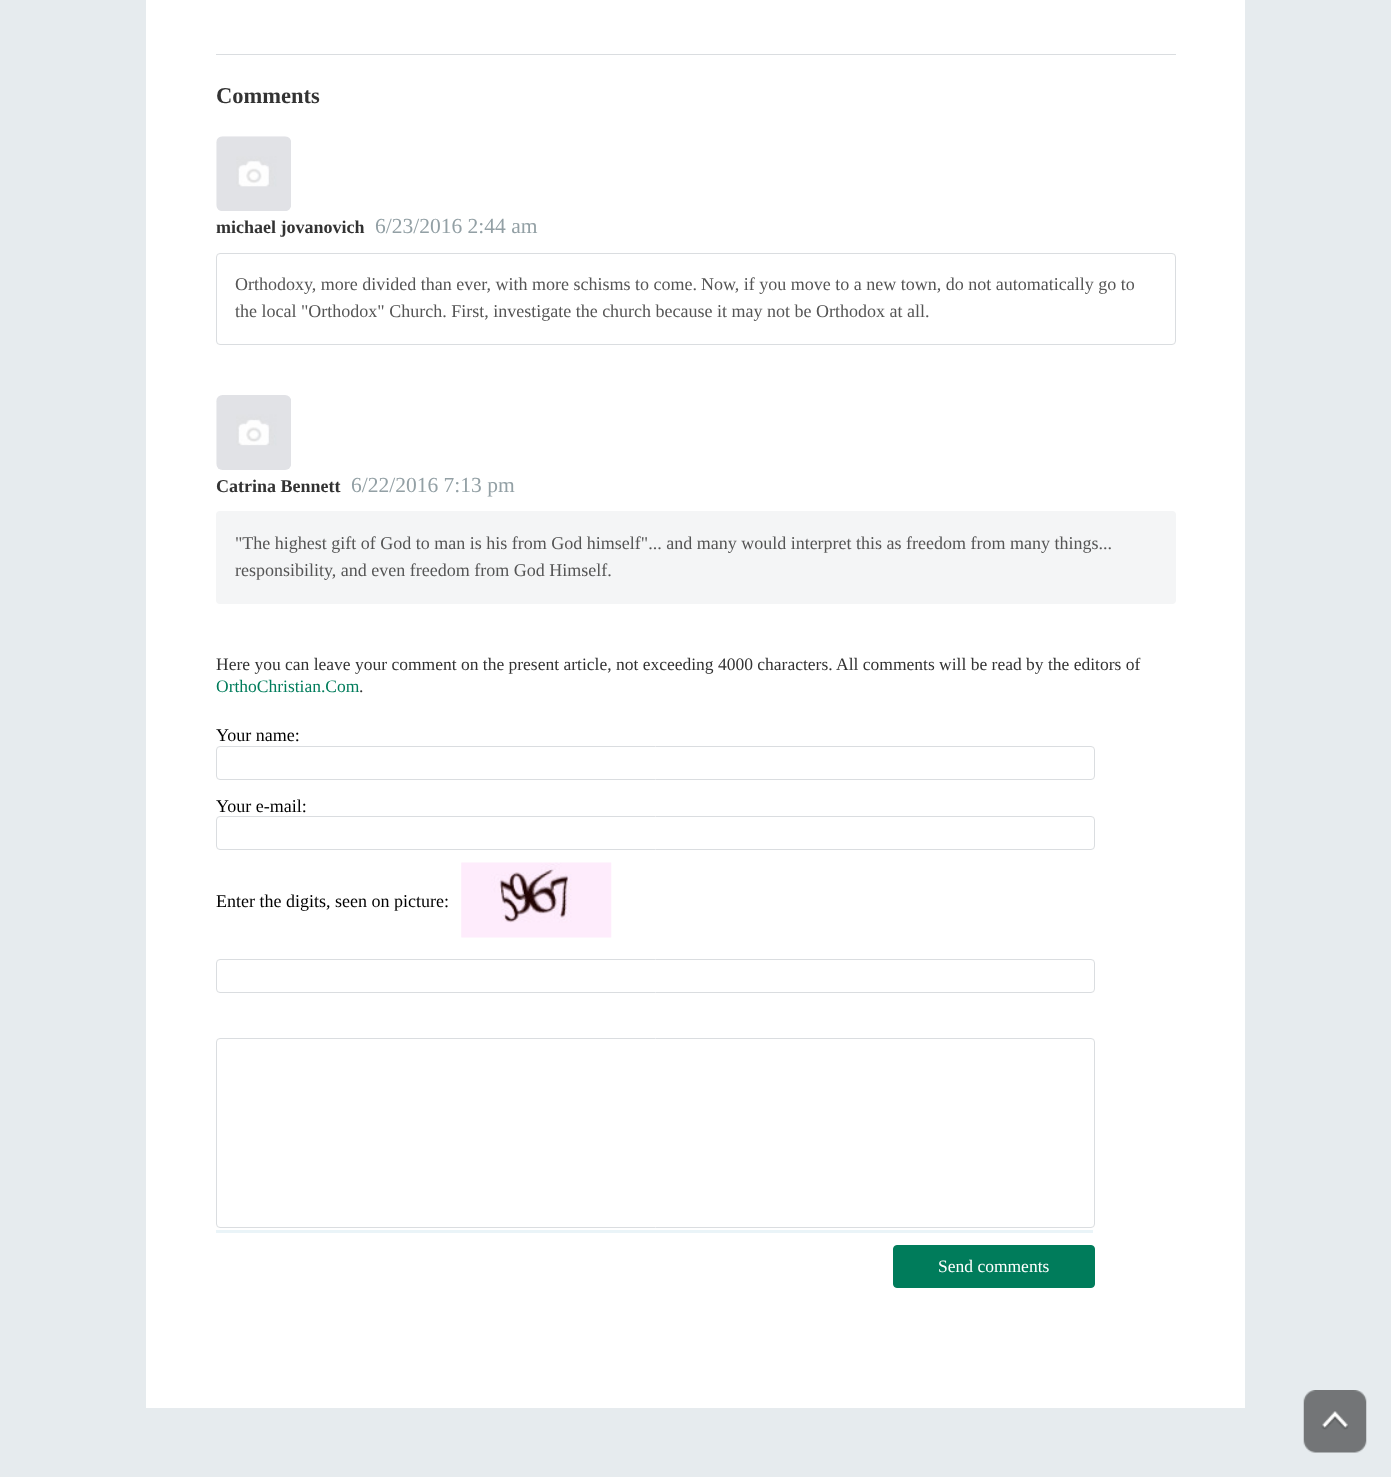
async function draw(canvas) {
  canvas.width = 1391
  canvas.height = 1477
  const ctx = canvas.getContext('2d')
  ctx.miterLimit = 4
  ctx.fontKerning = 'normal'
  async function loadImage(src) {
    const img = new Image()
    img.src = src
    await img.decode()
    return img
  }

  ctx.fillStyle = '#e6ebee'
  ctx.fillRect(0, 0, 1391, 1477)
  ctx.fillStyle = '#fff'
  ctx.fillRect(146, 0, 1099, 1408)
  ctx.fillStyle = '#dadde0'
  ctx.fillRect(216, 54, 960, 1)
  ctx.font = 'bold 22.5px Liberation Serif'
  ctx.fillStyle = '#333'
  ctx.fillText('Comments', 216, 103)
  ctx.drawImage(await loadImage('image0.png'), 216, 136, 75, 75)
  ctx.font = 'bold 18px Liberation Serif'
  ctx.fillText('michael jovanovich', 216, 233)
  ctx.font = '21.5px Liberation Serif'
  ctx.fillStyle = '#93a0a5'
  ctx.fillText('6/23/2016 2:44 am', 375, 233)
  ctx.beginPath()
  ctx.roundRect(216.5, 253.5, 959, 91, 3.5)
  ctx.strokeStyle = '#dadde0'
  ctx.stroke()
  ctx.font = '18px Liberation Serif'
  ctx.fillStyle = '#555'
  ctx.fillText('Orthodoxy, more divided than ever, with more schisms to come.', 235, 290)
  ctx.fillText('Now, if you move to a new town, do not automatically go to', 701, 290)
  ctx.fillText('the local "Orthodox" Church. First, investigate the church because it may not be Orthodox at all.', 235, 317)
  ctx.drawImage(await loadImage('image1.png'), 216, 395, 75, 75)
  ctx.font = 'bold 18px Liberation Serif'
  ctx.fillStyle = '#333'
  ctx.fillText('Catrina Bennett', 216, 492)
  ctx.font = '21.5px Liberation Serif'
  ctx.fillStyle = '#93a0a5'
  ctx.fillText('6/22/2016 7:13 pm', 351, 492)
  ctx.fillStyle = '#f4f5f6'
  ctx.beginPath()
  ctx.roundRect(216, 511, 960, 93, 4)
  ctx.fill()
  ctx.font = '18px Liberation Serif'
  ctx.fillStyle = '#555'
  ctx.fillText('"The highest gift of God to man is his from God himself"... and many would interpret this as freedom from many things...', 235, 549)
  ctx.fillText('responsibility, and even freedom from God Himself.', 235, 576)
  ctx.font = '17.5px Liberation Serif'
  ctx.fillStyle = '#333'
  ctx.fillText('Here you can leave your comment on the present article, not exceeding 4000 characters. All comments will be read by the editors of', 216, 670)
  ctx.fillStyle = '#007c5b'
  ctx.fillText('OrthoChristian.Com', 216, 692)
  ctx.fillStyle = '#333'
  ctx.fillText('.', 359, 692)
  ctx.font = '18px Liberation Serif'
  ctx.fillStyle = '#000'
  ctx.fillText('Your name:', 216, 741)
  ctx.beginPath()
  ctx.roundRect(216.5, 746.5, 878, 33, 3.5)
  ctx.stroke()
  ctx.fillText('Your e-mail:', 216, 812)
  ctx.beginPath()
  ctx.roundRect(216.5, 816.5, 878, 33, 3.5)
  ctx.stroke()
  ctx.fillText('Enter the digits, seen on picture:', 216, 907)
  ctx.drawImage(await loadImage('image2.png'), 461, 862, 151, 76)
  ctx.beginPath()
  ctx.roundRect(216.5, 959.5, 878, 33, 3.5)
  ctx.stroke()
  ctx.beginPath()
  ctx.roundRect(216.5, 1038.5, 878, 189, 3.5)
  ctx.stroke()
  ctx.fillStyle = '#eaf4f8'
  ctx.fillRect(216, 1230, 877, 3)
  ctx.fillStyle = '#007c5b'
  ctx.beginPath()
  ctx.roundRect(893.5, 1245.5, 201, 42, 3.5)
  ctx.fill()
  ctx.strokeStyle = '#007c5b'
  ctx.stroke()
  ctx.font = '17.5px Liberation Serif'
  ctx.fillStyle = '#fff'
  ctx.fillText('Send comments', 938, 1272)
  ctx.drawImage(await loadImage('image3.png'), 1303, 1390, 64, 63)
}

draw(document.querySelector('canvas'))
